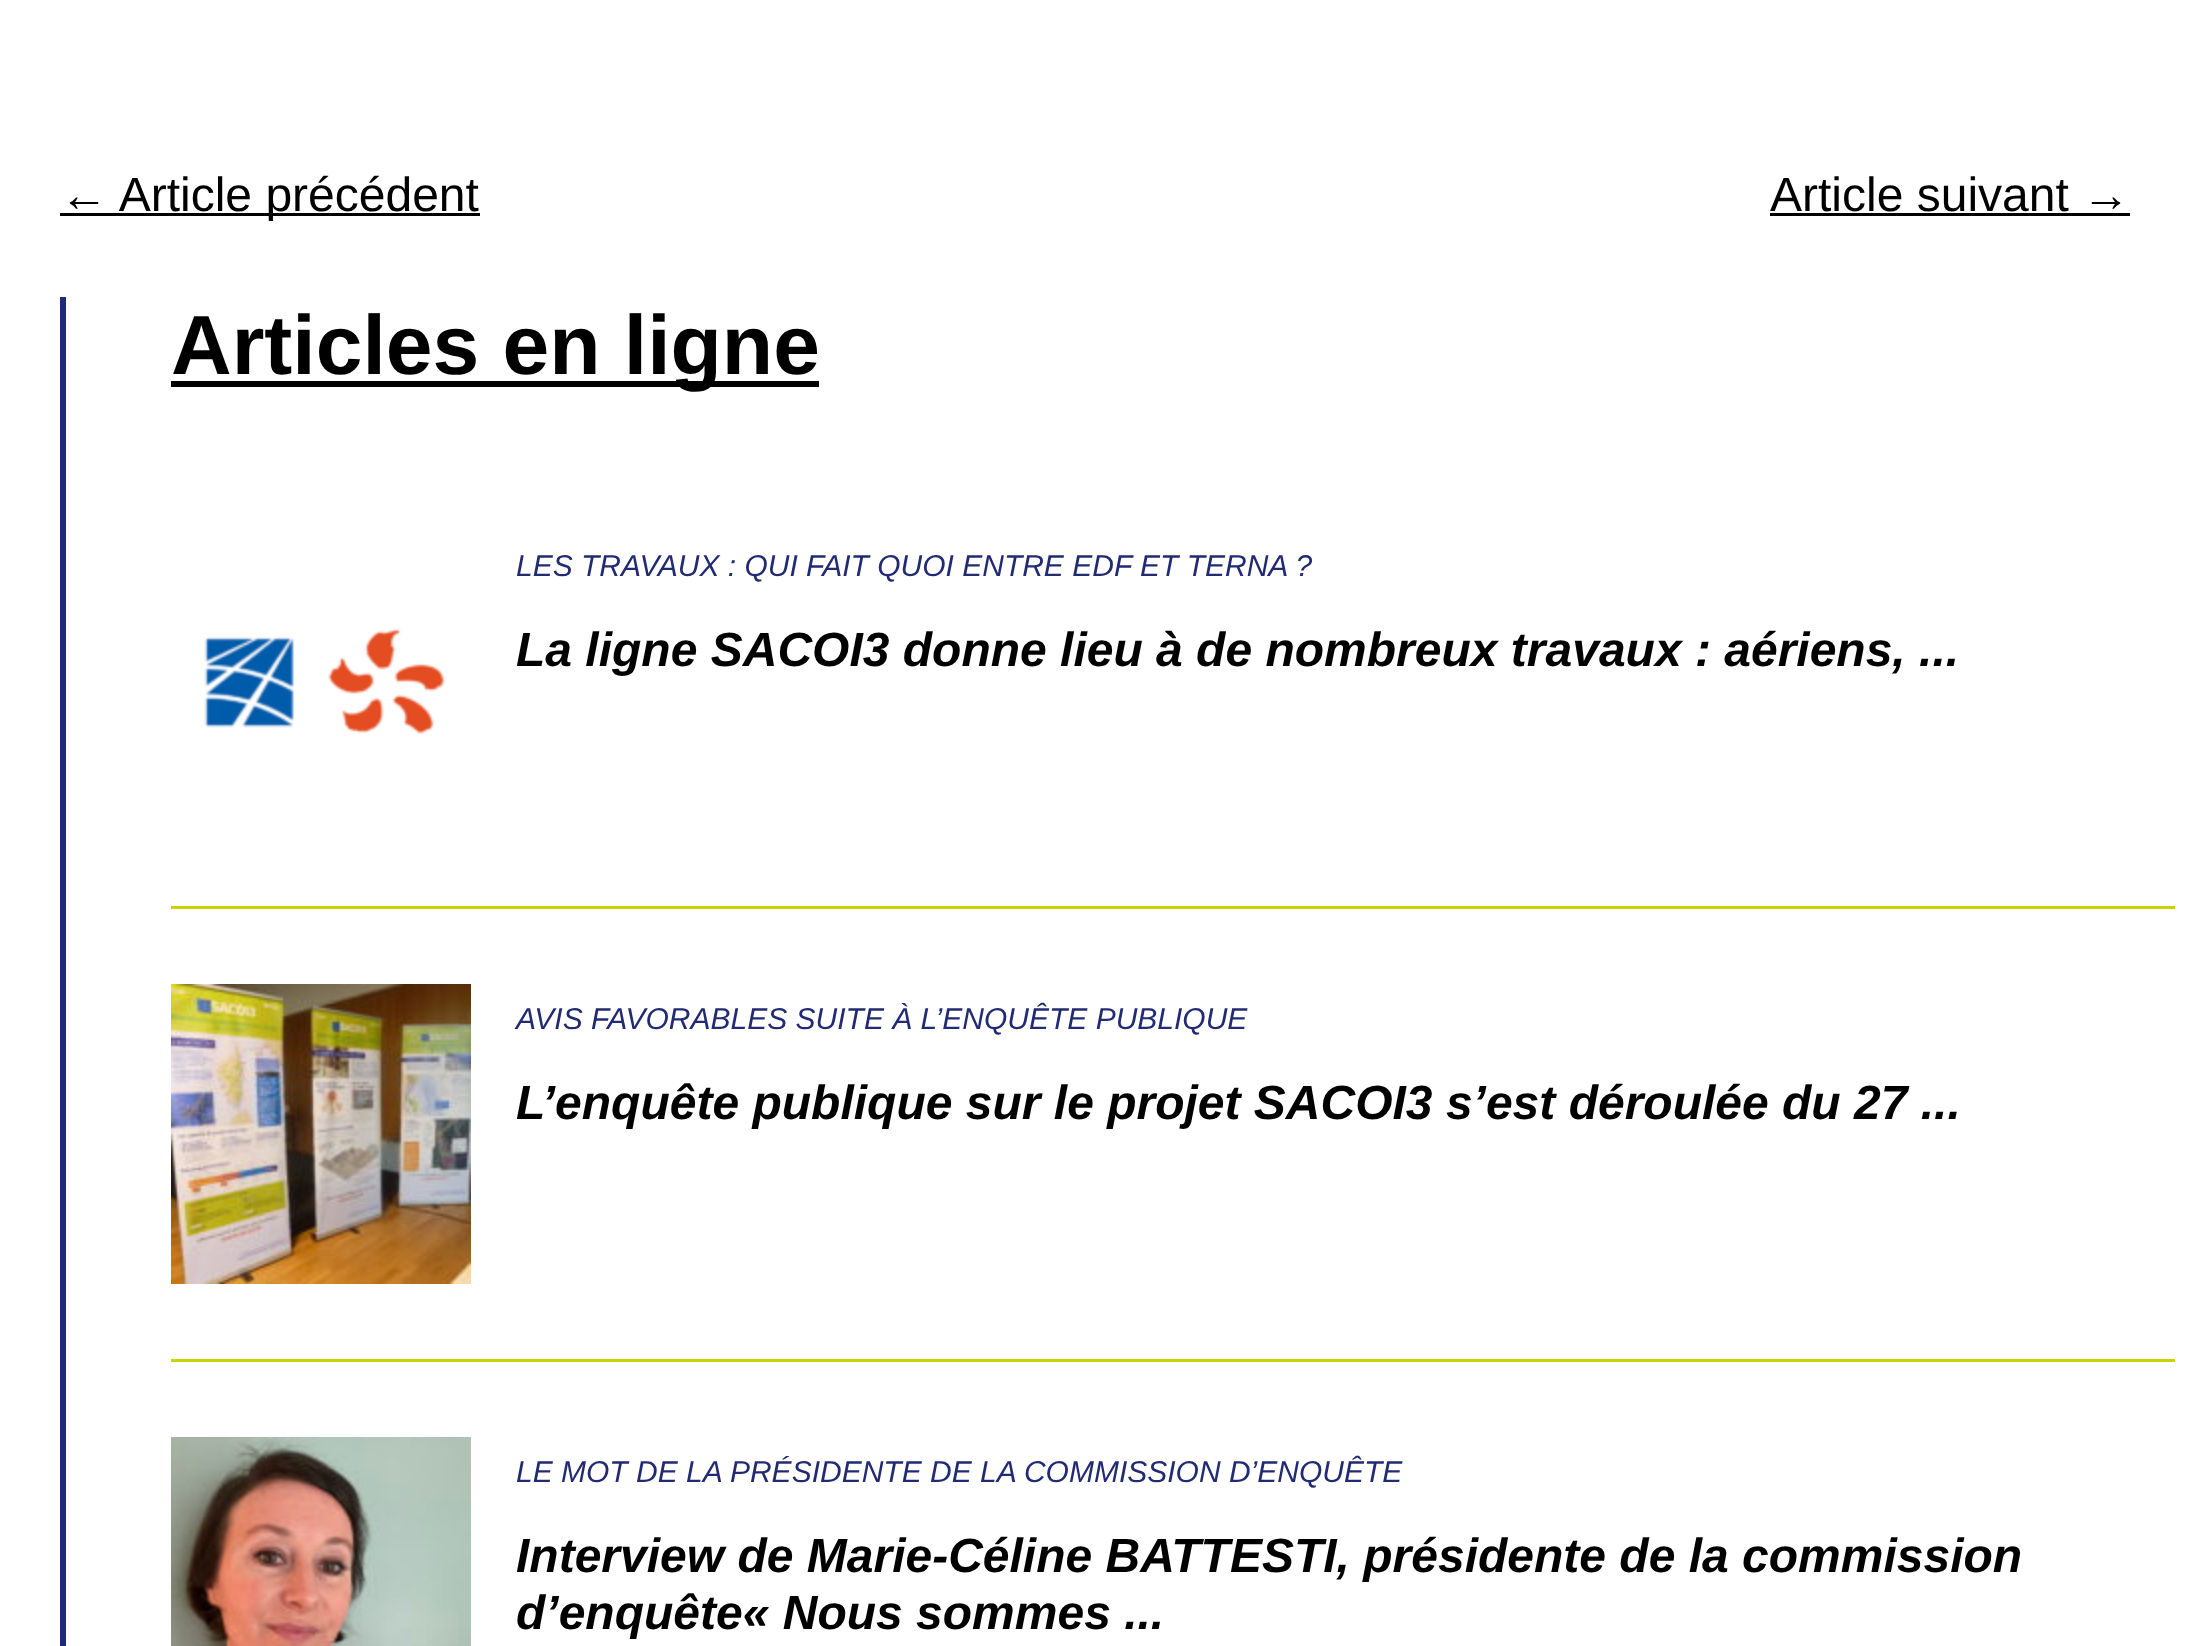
async function draw(canvas) {
  canvas.width = 2189
  canvas.height = 1646
  const ctx = canvas.getContext('2d')
  ctx.miterLimit = 4
  ctx.fontKerning = 'normal'
  async function loadImage(src) {
    const img = new Image()
    img.src = src
    await img.decode()
    return img
  }

  ctx.fillStyle = '#fff'
  ctx.fillRect(0, 0, 2189, 1646)
  ctx.fillStyle = '#000'
  ctx.fillRect(60, 213, 420, 3)
  ctx.font = '48px Liberation Sans'
  ctx.fillText('← Article précédent', 60, 211)
  ctx.fillText('Article suivant →', 1770, 211)
  ctx.fillRect(1770, 213, 360, 3)
  ctx.fillStyle = '#212a72'
  ctx.fillRect(60, 297, 6, 1349)
  ctx.fillStyle = '#000'
  ctx.fillRect(171, 381, 648, 6)
  ctx.font = 'bold 84px Liberation Sans'
  ctx.fillText('Articles en ligne', 171, 374)
  ctx.fillStyle = '#c8d300'
  ctx.fillRect(171, 906, 2004, 3)
  ctx.font = 'italic 30px Liberation Sans'
  ctx.fillStyle = '#212a72'
  ctx.fillText('LES TRAVAUX : QUI FAIT QUOI ENTRE EDF ET TERNA ?', 516, 576)
  ctx.drawImage(await loadImage('image0.png'), 204, 628, 242, 106)
  ctx.font = 'italic bold 48px Liberation Sans'
  ctx.fillStyle = '#000'
  ctx.fillText('La ligne SACOI3 donne lieu à de nombreux travaux : aériens, ...', 516, 666)
  ctx.fillStyle = '#c8d300'
  ctx.fillRect(171, 1359, 2004, 3)
  ctx.drawImage(await loadImage('image1.png'), 171, 984, 300, 300)
  ctx.font = 'italic 30px Liberation Sans'
  ctx.fillStyle = '#212a72'
  ctx.fillText('AVIS FAVORABLES SUITE À L’ENQUÊTE PUBLIQUE', 516, 1029)
  ctx.font = 'italic bold 48px Liberation Sans'
  ctx.fillStyle = '#000'
  ctx.fillText('L’enquête publique sur le projet SACOI3 s’est déroulée du 27 ...', 516, 1119)
  ctx.drawImage(await loadImage('image2.png'), 171, 1437, 300, 209)
  ctx.font = 'italic 30px Liberation Sans'
  ctx.fillStyle = '#212a72'
  ctx.fillText('LE MOT DE LA PRÉSIDENTE DE LA COMMISSION D’ENQUÊTE', 516, 1482)
  ctx.font = 'italic bold 48px Liberation Sans'
  ctx.fillStyle = '#000'
  ctx.fillText('Interview de Marie-Céline BATTESTI, présidente de la commission', 516, 1572)
  ctx.fillText('d’enquête« Nous sommes ...', 516, 1629)
}

draw(document.querySelector('canvas'))
